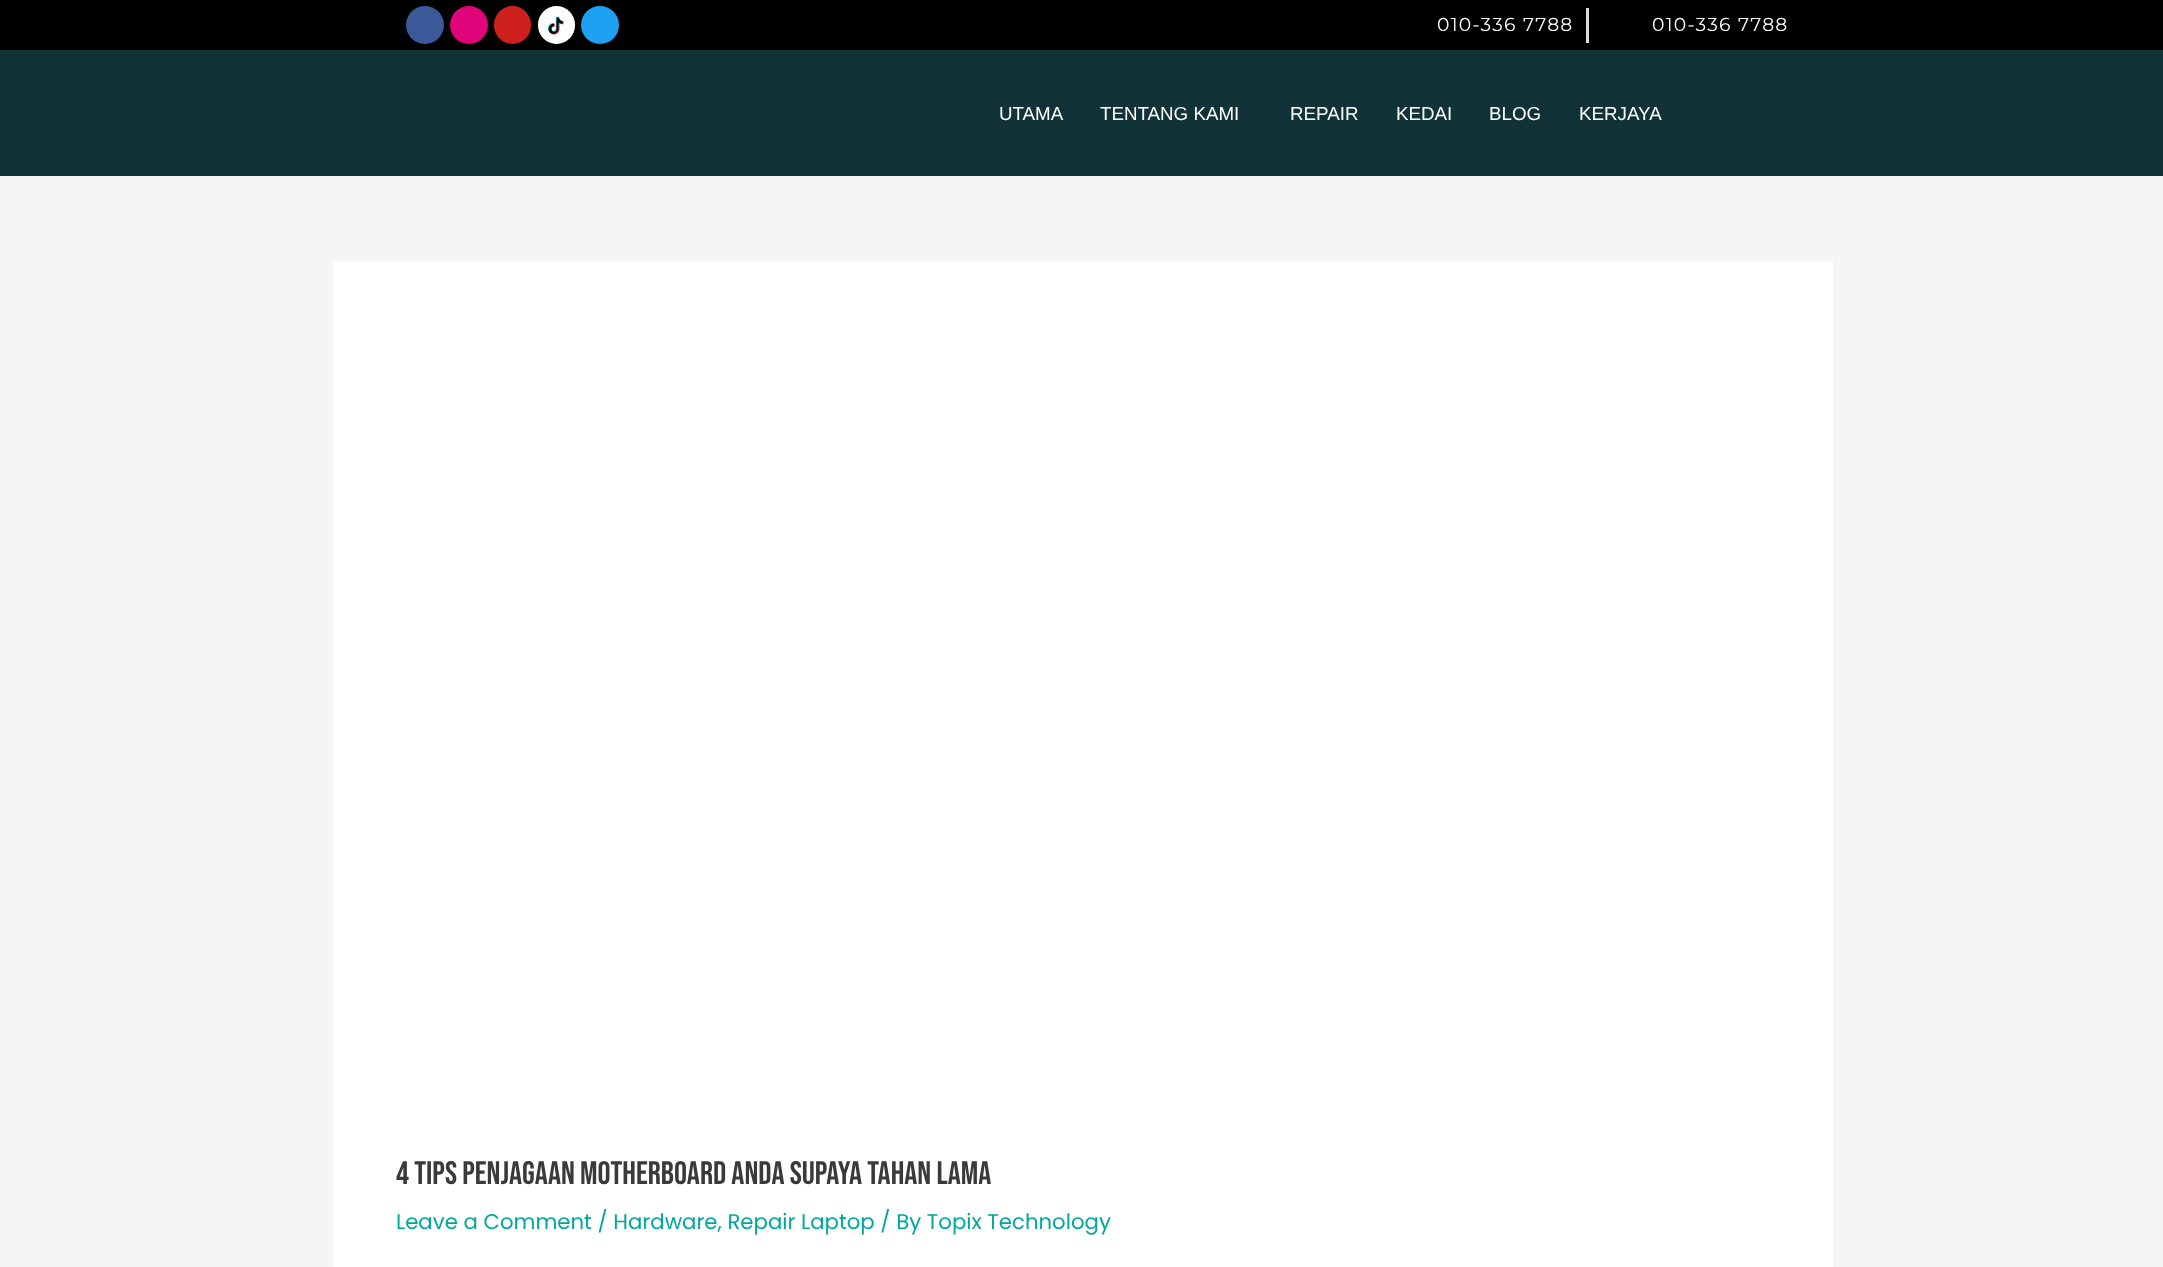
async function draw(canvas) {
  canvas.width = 2163
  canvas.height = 1267
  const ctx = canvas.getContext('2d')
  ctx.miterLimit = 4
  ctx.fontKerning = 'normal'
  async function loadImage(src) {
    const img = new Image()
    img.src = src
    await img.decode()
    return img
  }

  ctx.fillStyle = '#f5f5f5'
  ctx.fillRect(0, 0, 2163, 1267)
  ctx.fillStyle = '#000'
  ctx.fillRect(0, 0, 2163, 50)
  ctx.fillStyle = '#3b5998'
  ctx.beginPath()
  ctx.arc(425, 25, 19, 0, 2 * Math.PI)
  ctx.fill()
  ctx.fillStyle = '#e1037a'
  ctx.beginPath()
  ctx.arc(469, 25, 19, 0, 2 * Math.PI)
  ctx.fill()
  ctx.fillStyle = '#cd201f'
  ctx.beginPath()
  ctx.roundRect(494, 6, 37, 38, 18.5)
  ctx.fill()
  ctx.fillStyle = '#fff'
  ctx.beginPath()
  ctx.roundRect(538, 6, 37, 38, 18.5)
  ctx.fill()
  ctx.drawImage(await loadImage('image0.png'), 547, 16, 17, 19)
  ctx.fillStyle = '#1da1f2'
  ctx.beginPath()
  ctx.arc(600, 25, 19, 0, 2 * Math.PI)
  ctx.fill()
  ctx.letterSpacing = '1.25px'
  ctx.font = '18.75px Montserrat'
  ctx.fillStyle = '#fff'
  ctx.fillText('010-336 7788', 1437, 31)
  ctx.fillStyle = '#ddd'
  ctx.fillRect(1586, 8, 3, 35)
  ctx.fillStyle = '#fff'
  ctx.fillText('010-336 7788', 1652, 31)
  ctx.fillStyle = '#113337'
  ctx.fillRect(0, 50, 2163, 126)
  ctx.letterSpacing = '0px'
  ctx.font = '18.75px Liberation Sans'
  ctx.fillStyle = '#fff'
  ctx.fillText('UTAMA', 999, 120)
  ctx.fillText('TENTANG KAMI', 1100, 120)
  ctx.fillText('REPAIR', 1290, 120)
  ctx.fillText('KEDAI', 1396, 120)
  ctx.fillText('BLOG', 1489, 120)
  ctx.fillText('KERJAYA', 1579, 120)
  ctx.fillRect(333, 261, 1500, 1006)
  ctx.font = '32.5px Bebas Neue'
  ctx.fillStyle = '#3a3a3a'
  ctx.fillText('4 Tips Penjagaan Motherboard Anda Supaya Tahan Lama', 396, 1184)
  ctx.font = '21.25px Poppins'
  ctx.fillStyle = '#00a89c'
  ctx.fillText('Leave a Comment / Hardware, Repair Laptop / By Topix Technology', 396, 1229)
}

draw(document.querySelector('canvas'))
